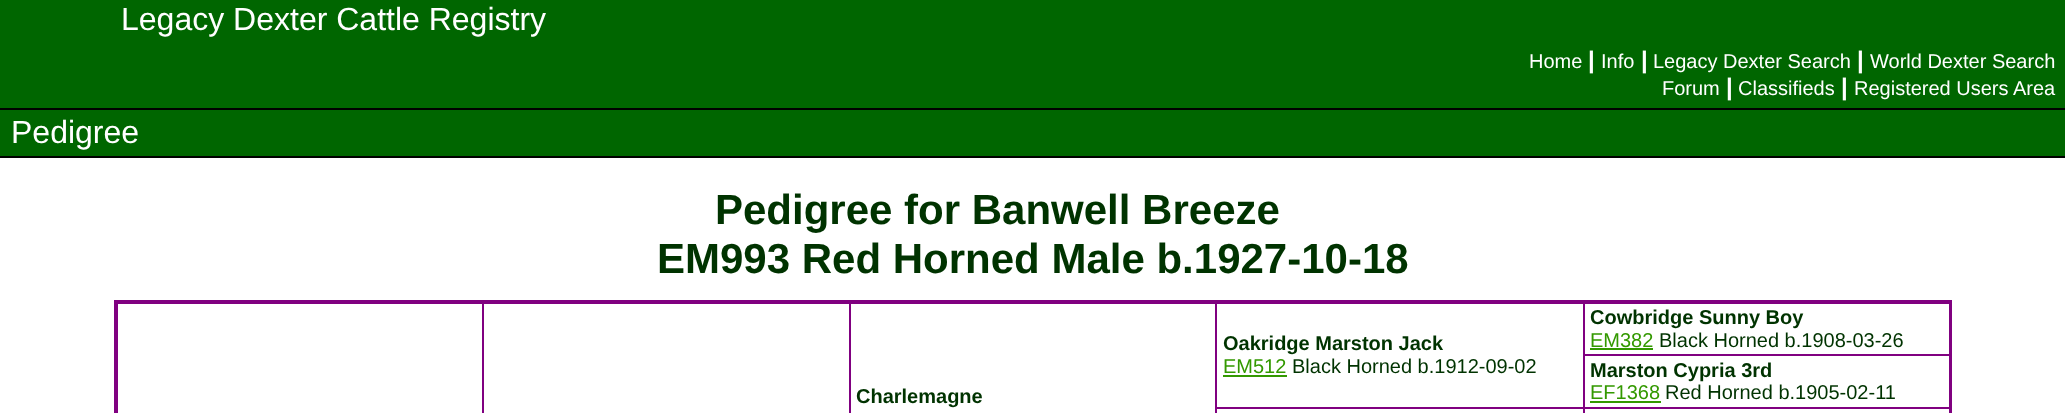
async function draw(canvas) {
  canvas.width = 2065
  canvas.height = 413
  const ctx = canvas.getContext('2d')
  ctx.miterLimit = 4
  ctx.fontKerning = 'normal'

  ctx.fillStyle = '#fff'
  ctx.fillRect(0, 0, 2065, 413)
  ctx.fillStyle = '#060'
  ctx.fillRect(0, 0, 104, 108)
  ctx.fillRect(104, 0, 1961, 108)
  ctx.font = '32px Liberation Sans'
  ctx.fillStyle = '#fff'
  ctx.fillText('Legacy Dexter Cattle Registry', 121, 30)
  ctx.fillStyle = '#000'
  ctx.fillRect(0, 108, 2065, 2)
  ctx.font = '20px Liberation Sans'
  ctx.fillStyle = '#fff'
  ctx.fillText('Home', 1529, 68)
  ctx.font = 'bold 24px Liberation Sans'
  ctx.fillText('|', 1588, 68)
  ctx.font = '20px Liberation Sans'
  ctx.fillText('Info', 1601, 68)
  ctx.font = 'bold 24px Liberation Sans'
  ctx.fillText('|', 1641, 68)
  ctx.font = '20px Liberation Sans'
  ctx.fillText('Legacy Dexter Search', 1653, 68)
  ctx.font = 'bold 24px Liberation Sans'
  ctx.fillText('|', 1857, 68)
  ctx.font = '20px Liberation Sans'
  ctx.fillText('World Dexter Search', 1870, 68)
  ctx.fillText('Forum', 1662, 95)
  ctx.font = 'bold 24px Liberation Sans'
  ctx.fillText('|', 1726, 95)
  ctx.font = '20px Liberation Sans'
  ctx.fillText('Classifieds', 1738, 95)
  ctx.font = 'bold 24px Liberation Sans'
  ctx.fillText('|', 1841, 95)
  ctx.font = '20px Liberation Sans'
  ctx.fillText('Registered Users Area', 1854, 95)
  ctx.fillStyle = '#060'
  ctx.fillRect(0, 110, 2065, 46)
  ctx.fillStyle = '#000'
  ctx.fillRect(0, 156, 2065, 2)
  ctx.font = '32px Liberation Sans'
  ctx.fillStyle = '#fff'
  ctx.fillText('Pedigree', 11, 143)
  ctx.font = 'bold 42px Liberation Sans'
  ctx.fillStyle = '#030'
  ctx.fillText('Pedigree for Banwell Breeze', 715, 224)
  ctx.fillText('EM993 Red Horned Male b.1927-10-18', 657, 273)
  ctx.fillStyle = '#800080'
  ctx.fillRect(1583, 303, 367, 1)
  ctx.fillRect(1583, 354, 367, 2)
  ctx.fillRect(1583, 407, 367, 2)
  ctx.fillRect(1583, 407, 2, 6)
  ctx.fillRect(1215, 407, 369, 2)
  ctx.fillRect(1583, 354, 2, 54)
  ctx.fillRect(1583, 302, 2, 54)
  ctx.fillRect(1215, 303, 369, 1)
  ctx.fillRect(1215, 407, 2, 6)
  ctx.fillRect(1215, 302, 2, 106)
  ctx.fillRect(849, 303, 368, 1)
  ctx.fillRect(849, 302, 2, 111)
  ctx.fillRect(482, 303, 369, 1)
  ctx.fillRect(482, 302, 2, 111)
  ctx.fillRect(116, 303, 367, 1)
  ctx.fillRect(117, 302, 1, 111)
  ctx.fillRect(114, 300, 1838, 3)
  ctx.fillRect(1949, 300, 3, 113)
  ctx.fillRect(114, 300, 3, 113)
  ctx.font = 'bold 20px Liberation Sans'
  ctx.fillStyle = '#030'
  ctx.fillText('Cowbridge Sunny Boy', 1590, 324)
  ctx.font = '20px Liberation Sans'
  ctx.fillStyle = '#390'
  ctx.fillText('EM382', 1590, 347)
  ctx.fillRect(1590, 348, 63, 2)
  ctx.fillStyle = '#030'
  ctx.fillText('Black Horned b.1908-03-26', 1659, 347)
  ctx.font = 'bold 20px Liberation Sans'
  ctx.fillText('Oakridge Marston Jack', 1223, 350)
  ctx.font = '20px Liberation Sans'
  ctx.fillStyle = '#390'
  ctx.fillText('EM512', 1223, 373)
  ctx.fillRect(1223, 375, 64, 2)
  ctx.fillStyle = '#030'
  ctx.fillText('Black Horned b.1912-09-02', 1292, 373)
  ctx.font = 'bold 20px Liberation Sans'
  ctx.fillText('Charlemagne', 856, 403)
  ctx.fillText('Marston Cypria 3rd', 1590, 377)
  ctx.font = '20px Liberation Sans'
  ctx.fillStyle = '#390'
  ctx.fillText('EF1368', 1590, 399)
  ctx.fillRect(1590, 401, 71, 2)
  ctx.fillStyle = '#030'
  ctx.fillText('Red Horned b.1905-02-11', 1665, 399)
}

draw(document.querySelector('canvas'))
